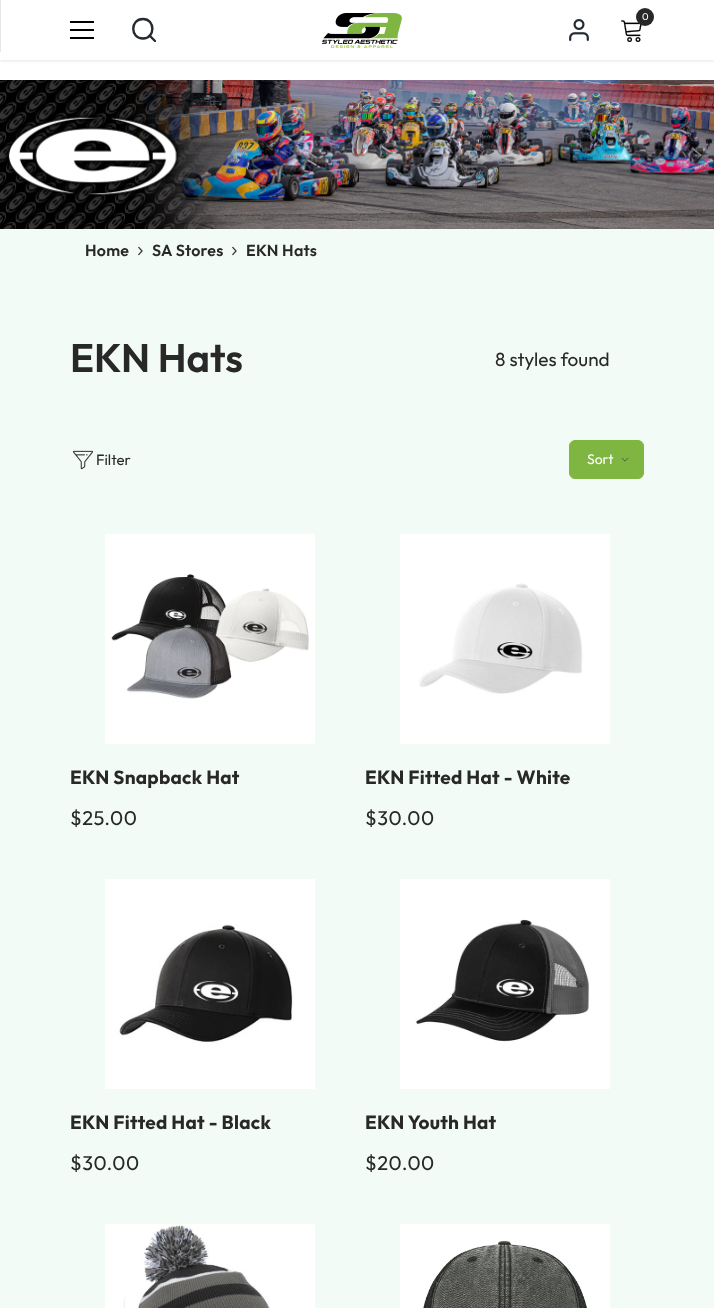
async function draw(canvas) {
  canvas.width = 714
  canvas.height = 1308
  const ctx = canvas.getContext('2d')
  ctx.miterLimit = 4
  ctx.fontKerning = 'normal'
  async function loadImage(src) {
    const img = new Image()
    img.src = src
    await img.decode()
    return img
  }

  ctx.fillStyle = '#fff'
  ctx.fillRect(0, 0, 714, 1308)
  ctx.fillStyle = '#0000001a'
  ctx.filter = 'blur(1.5px)'
  ctx.beginPath()
  ctx.rect(0, 1, 714, 60)
  ctx.fill()
  ctx.filter = 'none'
  ctx.fillStyle = '#fff'
  ctx.fillRect(0, 0, 714, 60)
  ctx.fillStyle = '#e6e6e6'
  ctx.fillRect(0, 0, 1, 52)
  ctx.beginPath()
  ctx.moveTo(143, 38.5)
  ctx.bezierCurveTo(155.5, 38.5, 155.5, 19, 143, 19)
  ctx.bezierCurveTo(130, 19, 130, 38.5, 143, 38.5)
  ctx.closePath()
  ctx.strokeStyle = '#242b33'
  ctx.lineWidth = 2.4
  ctx.lineCap = 'round'
  ctx.lineJoin = 'round'
  ctx.stroke()
  ctx.save()
  ctx.beginPath()
  ctx.rect(132, 18, 24, 24)
  ctx.clip()
  ctx.beginPath()
  ctx.moveTo(155, 41)
  ctx.lineTo(149.5, 35.5)
  ctx.stroke()
  ctx.restore()
  ctx.fillStyle = '#000'
  ctx.fillRect(70, 29, 24, 2)
  ctx.fillRect(70, 21, 24, 2)
  ctx.fillRect(70, 37, 24, 2)
  ctx.drawImage(await loadImage('image0.png'), 322, 13, 80, 35)
  ctx.drawImage(await loadImage('image1.png'), 621, 20, 21, 22)
  ctx.fillStyle = '#282828'
  ctx.beginPath()
  ctx.arc(645, 17, 9, 0, 2 * Math.PI)
  ctx.fill()
  ctx.letterSpacing = '0.25px'
  ctx.font = '10px Outfit'
  ctx.fillStyle = '#fff'
  ctx.fillText('0', 642, 20)
  ctx.drawImage(await loadImage('image2.png'), 569, 19, 20, 22)
  ctx.fillStyle = '#f3fbf6'
  ctx.fillRect(0, 229, 714, 1079)
  ctx.drawImage(await loadImage('image3.png'), 0, 80, 714, 149)
  ctx.font = '600 16px Outfit'
  ctx.fillStyle = '#282828'
  ctx.fillText('Home', 85, 256)
  ctx.drawImage(await loadImage('image4.png'), 138, 246, 5, 10)
  ctx.fillText('SA Stores', 152, 256)
  ctx.drawImage(await loadImage('image4.png'), 232, 246, 5, 10)
  ctx.fillText('EKN Hats', 246, 256)
  ctx.letterSpacing = '0px'
  ctx.font = '600 40px Outfit'
  ctx.fillText('EKN Hats', 70, 372)
  ctx.font = '19px Outfit'
  ctx.fillText('8 styles found', 495, 366)
  ctx.drawImage(await loadImage('image5.png'), 73, 450, 20, 20)
  ctx.font = '15px Outfit'
  ctx.fillText('Filter', 96, 465)
  ctx.fillStyle = '#7fb642'
  ctx.beginPath()
  ctx.roundRect(569.5, 440.5, 74, 38, 5.5)
  ctx.fill()
  ctx.strokeStyle = '#7fb642'
  ctx.lineWidth = 1
  ctx.lineJoin = 'miter'
  ctx.stroke()
  ctx.font = '14px Outfit'
  ctx.fillStyle = '#fff'
  ctx.fillText('Sort', 587, 464)
  ctx.drawImage(await loadImage('image6.png'), 621, 458, 8, 4)
  ctx.drawImage(await loadImage('image7.png'), 105, 534, 210, 210)
  ctx.letterSpacing = '0.25px'
  ctx.font = 'bold 19px Outfit'
  ctx.fillStyle = '#282828'
  ctx.fillText('EKN Snapback Hat', 70, 784)
  ctx.letterSpacing = '0.5px'
  ctx.font = '20px Outfit'
  ctx.fillText('$25.00', 70, 825)
  ctx.drawImage(await loadImage('image8.png'), 400, 534, 210, 210)
  ctx.letterSpacing = '0.25px'
  ctx.font = 'bold 19px Outfit'
  ctx.fillText('EKN Fitted Hat - White', 365, 784)
  ctx.letterSpacing = '0.5px'
  ctx.font = '20px Outfit'
  ctx.fillText('$30.00', 365, 825)
  ctx.drawImage(await loadImage('image9.png'), 105, 879, 210, 210)
  ctx.letterSpacing = '0.25px'
  ctx.font = 'bold 19px Outfit'
  ctx.fillText('EKN Fitted Hat - Black', 70, 1129)
  ctx.letterSpacing = '0.5px'
  ctx.font = '20px Outfit'
  ctx.fillText('$30.00', 70, 1170)
  ctx.drawImage(await loadImage('image10.png'), 400, 879, 210, 210)
  ctx.letterSpacing = '0.25px'
  ctx.font = 'bold 19px Outfit'
  ctx.fillText('EKN Youth Hat', 365, 1129)
  ctx.letterSpacing = '0.5px'
  ctx.font = '20px Outfit'
  ctx.fillText('$20.00', 365, 1170)
  ctx.drawImage(await loadImage('image11.png'), 105, 1224, 210, 84)
  ctx.drawImage(await loadImage('image12.png'), 400, 1224, 210, 84)
}

draw(document.querySelector('canvas'))
